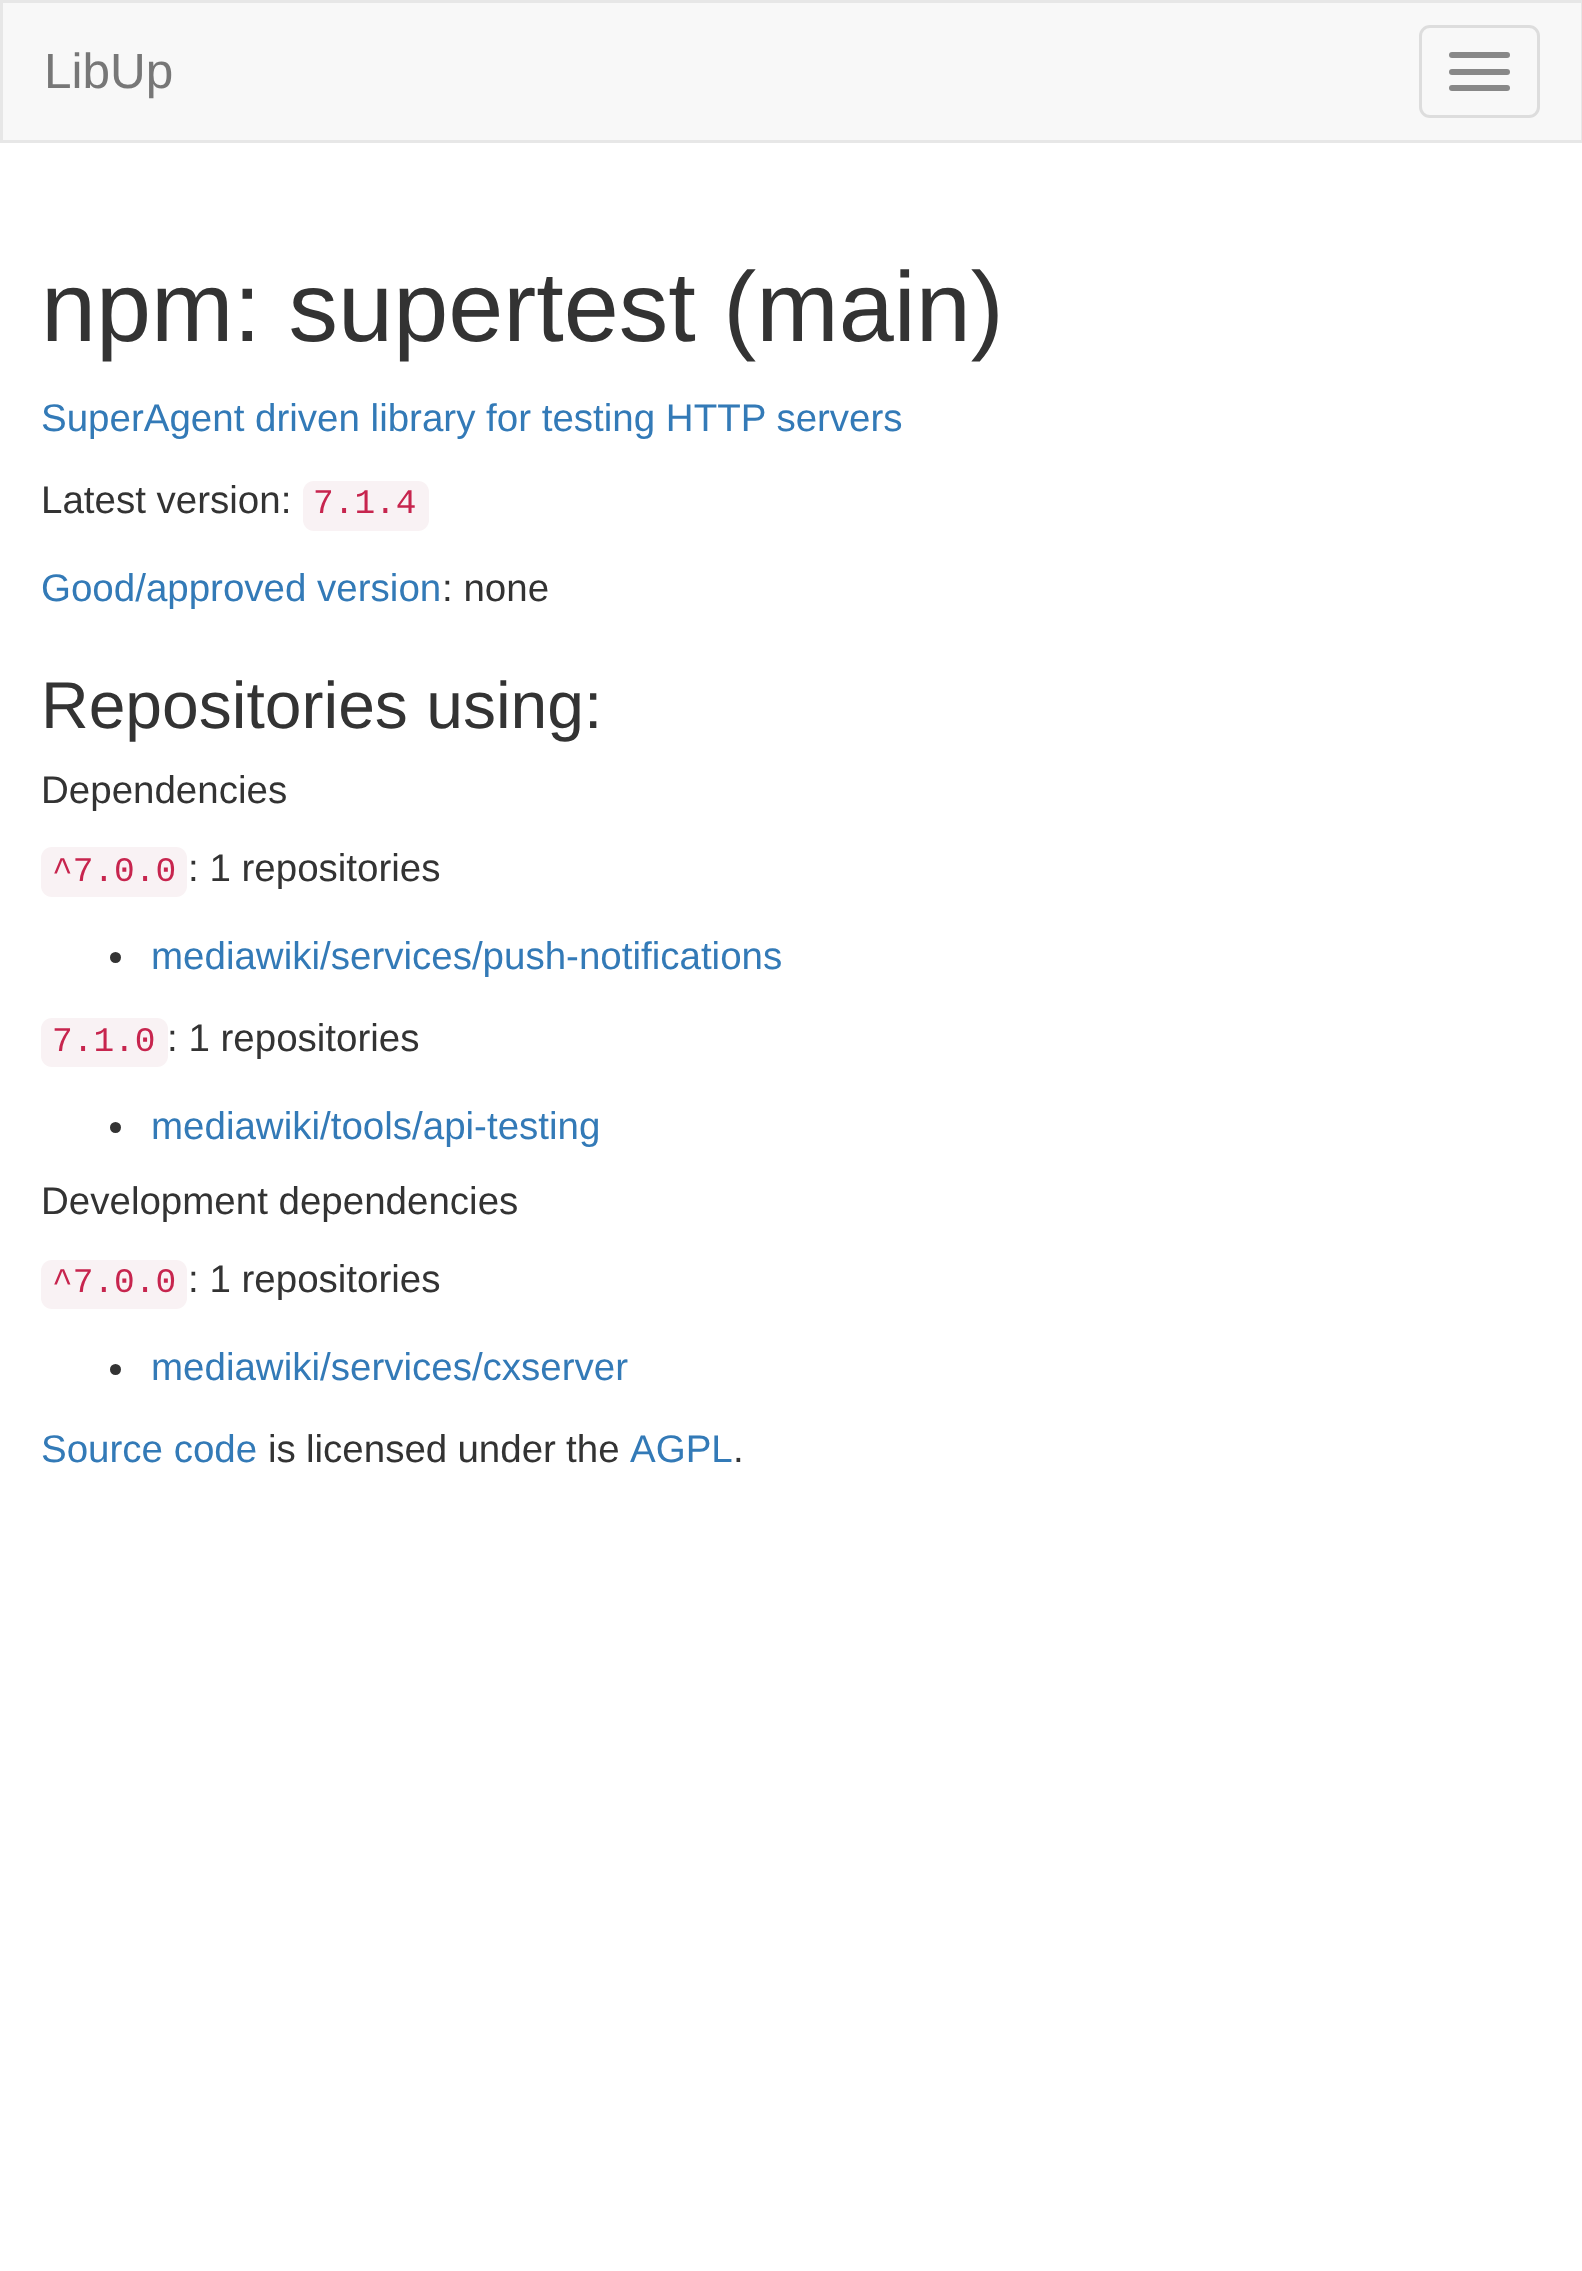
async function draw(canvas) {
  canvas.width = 1582
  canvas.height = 2271
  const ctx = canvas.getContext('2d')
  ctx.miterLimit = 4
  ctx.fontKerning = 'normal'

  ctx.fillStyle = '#fff'
  ctx.fillRect(0, 0, 1582, 2271)
  ctx.fillStyle = '#f8f8f8'
  ctx.beginPath()
  ctx.rect(1.5, 1.5, 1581, 140)
  ctx.fill()
  ctx.strokeStyle = '#e7e7e7'
  ctx.lineWidth = 3
  ctx.stroke()
  ctx.font = '49.5px Liberation Sans'
  ctx.fillStyle = '#777'
  ctx.fillText('LibUp', 44, 88)
  ctx.beginPath()
  ctx.roundRect(1420.5, 26.5, 118, 90, 9.5)
  ctx.strokeStyle = '#ddd'
  ctx.stroke()
  ctx.fillStyle = '#888'
  ctx.beginPath()
  ctx.roundRect(1449, 52, 61, 6, 3)
  ctx.fill()
  ctx.beginPath()
  ctx.roundRect(1449, 69, 61, 6, 3)
  ctx.fill()
  ctx.beginPath()
  ctx.roundRect(1449, 85, 61, 6, 3)
  ctx.fill()
  ctx.font = '99px Liberation Sans'
  ctx.fillStyle = '#333'
  ctx.fillText('npm: supertest (main)', 41, 341)
  ctx.font = '38.5px Liberation Sans'
  ctx.fillStyle = '#337ab7'
  ctx.fillText('SuperAgent driven library for testing HTTP servers', 41, 431)
  ctx.fillStyle = '#333'
  ctx.fillText('Latest version:', 41, 513)
  ctx.fillStyle = '#f9f2f4'
  ctx.beginPath()
  ctx.roundRect(303, 481, 126, 50, 11)
  ctx.fill()
  ctx.font = '34.5px Liberation Mono'
  ctx.fillStyle = '#c7254e'
  ctx.fillText('7.1.4', 313, 513)
  ctx.font = '38.5px Liberation Sans'
  ctx.fillStyle = '#337ab7'
  ctx.fillText('Good/approved version', 41, 601)
  ctx.fillStyle = '#333'
  ctx.fillText(': none', 442, 601)
  ctx.font = '66px Liberation Sans'
  ctx.fillText('Repositories using:', 41, 728)
  ctx.font = '38.5px Liberation Sans'
  ctx.fillText('Dependencies', 41, 803)
  ctx.fillStyle = '#f9f2f4'
  ctx.beginPath()
  ctx.roundRect(41, 847, 146, 50, 11)
  ctx.fill()
  ctx.font = '34.5px Liberation Mono'
  ctx.fillStyle = '#c7254e'
  ctx.fillText('^7.0.0', 52, 881)
  ctx.font = '38.5px Liberation Sans'
  ctx.fillStyle = '#333'
  ctx.fillText(': 1 repositories', 188, 881)
  ctx.beginPath()
  ctx.arc(115.5, 957.5, 5.5, 0, 2 * Math.PI)
  ctx.fill()
  ctx.fillStyle = '#337ab7'
  ctx.fillText('mediawiki/services/push-notifications', 151, 969)
  ctx.fillStyle = '#f9f2f4'
  ctx.beginPath()
  ctx.roundRect(41, 1018, 127, 49, 11)
  ctx.fill()
  ctx.font = '34.5px Liberation Mono'
  ctx.fillStyle = '#c7254e'
  ctx.fillText('7.1.0', 52, 1051)
  ctx.font = '38.5px Liberation Sans'
  ctx.fillStyle = '#333'
  ctx.fillText(': 1 repositories', 167, 1051)
  ctx.beginPath()
  ctx.arc(115.5, 1127.5, 5.5, 0, 2 * Math.PI)
  ctx.fill()
  ctx.fillStyle = '#337ab7'
  ctx.fillText('mediawiki/tools/api-testing', 151, 1139)
  ctx.fillStyle = '#333'
  ctx.fillText('Development dependencies', 41, 1214)
  ctx.fillStyle = '#f9f2f4'
  ctx.beginPath()
  ctx.roundRect(41, 1260, 146, 49, 11)
  ctx.fill()
  ctx.font = '34.5px Liberation Mono'
  ctx.fillStyle = '#c7254e'
  ctx.fillText('^7.0.0', 52, 1292)
  ctx.font = '38.5px Liberation Sans'
  ctx.fillStyle = '#333'
  ctx.fillText(': 1 repositories', 188, 1292)
  ctx.beginPath()
  ctx.arc(115.5, 1369.5, 5.5, 0, 2 * Math.PI)
  ctx.fill()
  ctx.fillStyle = '#337ab7'
  ctx.fillText('mediawiki/services/cxserver', 151, 1380)
  ctx.fillText('Source code', 41, 1462)
  ctx.wordSpacing = '-0.5px'
  ctx.fillStyle = '#333'
  ctx.fillText('is licensed under the', 268, 1462)
  ctx.wordSpacing = '0px'
  ctx.fillStyle = '#337ab7'
  ctx.fillText('AGPL', 630, 1462)
  ctx.fillStyle = '#333'
  ctx.fillText('.', 733, 1462)
}

draw(document.querySelector('canvas'))
